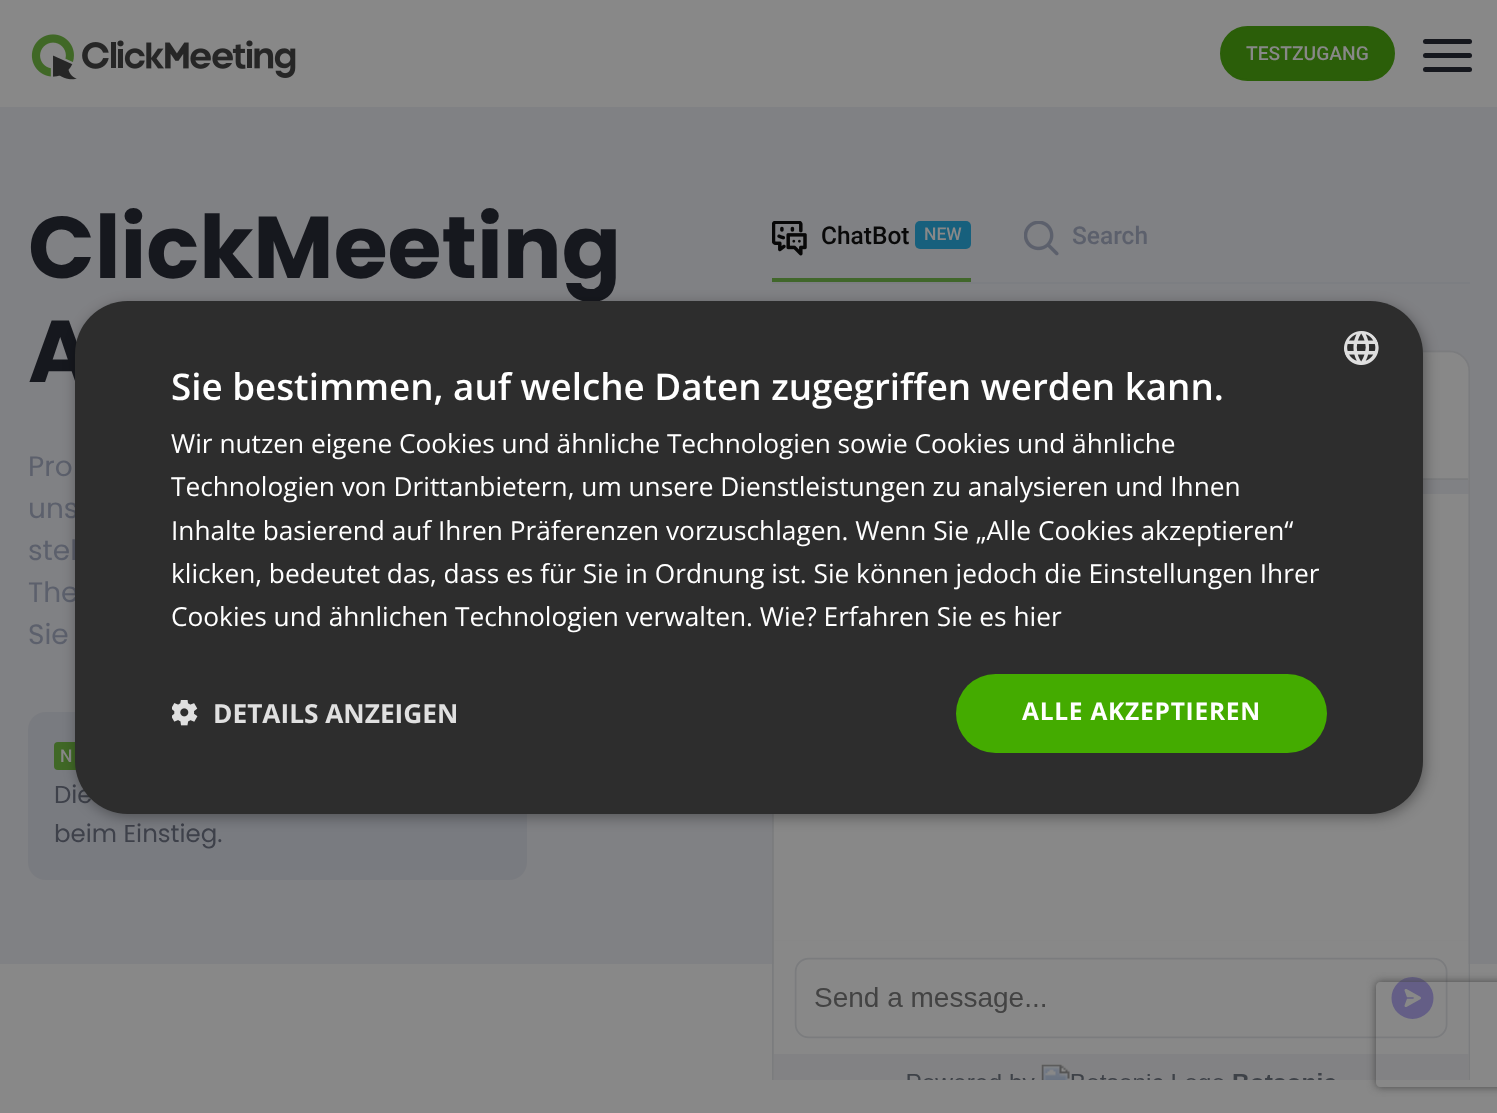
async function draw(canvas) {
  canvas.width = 1497
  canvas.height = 1113
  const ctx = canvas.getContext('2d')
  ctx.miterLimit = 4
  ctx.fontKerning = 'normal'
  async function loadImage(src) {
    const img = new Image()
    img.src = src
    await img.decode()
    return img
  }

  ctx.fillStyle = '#888'
  ctx.fillRect(0, 0, 1497, 1113)
  ctx.drawImage(await loadImage('image0.png'), 31, 34, 265, 46)
  ctx.fillStyle = '#2b5e09'
  ctx.beginPath()
  ctx.roundRect(1221, 27, 173, 53, 26.5)
  ctx.fill()
  ctx.strokeStyle = '#2b5e09'
  ctx.lineWidth = 2
  ctx.stroke()
  ctx.font = '500 19.25px Roboto'
  ctx.fillStyle = '#888'
  ctx.fillText('TESTZUGANG', 1246, 60)
  ctx.fillStyle = '#16181e'
  ctx.beginPath()
  ctx.roundRect(1423, 39, 49, 5, 2.5)
  ctx.fill()
  ctx.beginPath()
  ctx.roundRect(1423, 53, 49, 5, 2.5)
  ctx.fill()
  ctx.beginPath()
  ctx.roundRect(1423, 67, 49, 5, 2.5)
  ctx.fill()
  ctx.fillStyle = '#808184'
  ctx.fillRect(0, 107, 1497, 857)
  ctx.font = 'bold 87.5px Poppins'
  ctx.fillStyle = '#16181e'
  ctx.fillText('ClickMeeting', 28, 278)
  ctx.fillText('A', 28, 382)
  ctx.font = '28px Poppins'
  ctx.fillStyle = '#5c606c'
  ctx.fillText('Pro', 28, 476)
  ctx.fillText('uns', 28, 518)
  ctx.fillText('stel', 28, 560)
  ctx.fillText('The', 28, 602)
  ctx.fillText('Sie', 28, 644)
  ctx.fillStyle = '#797b80'
  ctx.beginPath()
  ctx.roundRect(28, 712, 499, 168, 18)
  ctx.fill()
  ctx.fillStyle = '#406826'
  ctx.beginPath()
  ctx.roundRect(54, 742, 44, 28, 4)
  ctx.fill()
  ctx.font = '500 17.5px Roboto'
  ctx.fillStyle = '#888'
  ctx.fillText('N', 60, 762)
  ctx.font = '24.5px Poppins'
  ctx.fillStyle = '#3e414a'
  ctx.fillText('Die', 54, 803)
  ctx.fillText('beim Einstieg.', 54, 842)
  ctx.fillStyle = '#7c7e82'
  ctx.fillRect(772, 282, 698, 2)
  ctx.drawImage(await loadImage('image1.png'), 772, 221, 35, 35)
  ctx.font = '500 24.5px Roboto'
  ctx.fillStyle = '#090909'
  ctx.fillText('ChatBot', 821, 244)
  ctx.fillStyle = '#17607d'
  ctx.beginPath()
  ctx.roundRect(915, 221, 56, 28, 5)
  ctx.fill()
  ctx.font = '500 17.5px Roboto'
  ctx.fillStyle = '#888'
  ctx.fillText('NEW', 924, 240)
  ctx.fillStyle = '#41672b'
  ctx.fillRect(772, 278, 199, 4)
  ctx.drawImage(await loadImage('image2.png'), 1024, 221, 35, 35)
  ctx.font = '500 24.5px Roboto'
  ctx.fillStyle = '#5c606c'
  ctx.fillText('Search', 1072, 244)
  ctx.drawImage(await loadImage('image3.png'), 772, 350, 698, 730)
  ctx.fillStyle = '#00000059'
  ctx.filter = 'blur(7px)'
  ctx.beginPath()
  ctx.roundRect(77, 305, 1348, 512, 53)
  ctx.fill()
  ctx.filter = 'none'
  ctx.fillStyle = '#2d2d2d'
  ctx.beginPath()
  ctx.roundRect(75, 301, 1348, 513, 53)
  ctx.fill()
  ctx.drawImage(await loadImage('image4.png'), 1344, 331, 35, 34)
  ctx.font = '600 36.75px Open Sans'
  ctx.fillStyle = '#fff'
  ctx.fillText('Sie bestimmen, auf welche Daten zugegriffen werden kann.', 171, 400)
  ctx.font = '26.25px Open Sans'
  ctx.fillText('Wir nutzen eigene Cookies und ähnliche Technologien sowie Cookies und ähnliche', 171, 453)
  ctx.fillText('Technologien von Drittanbietern, um unsere Dienstleistungen zu analysieren und Ihnen', 171, 496)
  ctx.fillText('Inhalte basierend auf Ihren Präferenzen vorzuschlagen. Wenn Sie „Alle Cookies akzeptieren“', 171, 540)
  ctx.fillText('klicken, bedeutet das, dass es für Sie in Ordnung ist. Sie können jedoch die Einstellungen Ihrer', 171, 583)
  ctx.fillText('Cookies und ähnlichen Technologien verwalten. Wie? Erfahren Sie es hier', 171, 626)
  ctx.drawImage(await loadImage('image5.png'), 172, 700, 26, 26)
  ctx.font = 'bold 26.25px Open Sans'
  ctx.fillStyle = '#e0e0e0'
  ctx.fillText('DETAILS ANZEIGEN', 213, 723)
  ctx.fillStyle = '#44ab00'
  ctx.beginPath()
  ctx.roundRect(956, 674, 371, 79, 39.5)
  ctx.fill()
  ctx.letterSpacing = '0.75px'
  ctx.font = 'bold 24.5px Open Sans'
  ctx.fillStyle = '#fff'
  ctx.fillText('ALLE AKZEPTIEREN', 1022, 720)
  ctx.save()
  ctx.beginPath()
  ctx.moveTo(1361, 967)
  ctx.lineTo(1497, 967)
  ctx.lineTo(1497, 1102)
  ctx.lineTo(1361, 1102)
  ctx.closePath()
  ctx.moveTo(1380, 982)
  ctx.lineTo(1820, 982)
  ctx.bezierCurveTo(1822, 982, 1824, 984, 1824, 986)
  ctx.lineTo(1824, 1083)
  ctx.bezierCurveTo(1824, 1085, 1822, 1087, 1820, 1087)
  ctx.lineTo(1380, 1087)
  ctx.bezierCurveTo(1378, 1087, 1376, 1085, 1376, 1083)
  ctx.lineTo(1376, 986)
  ctx.bezierCurveTo(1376, 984, 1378, 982, 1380, 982)
  ctx.closePath()
  ctx.clip('evenodd')
  ctx.fillStyle = '#494949'
  ctx.filter = 'blur(4.5px)'
  ctx.beginPath()
  ctx.roundRect(1376, 982, 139, 105, 4)
  ctx.fill()
  ctx.filter = 'none'
  ctx.restore()
}

draw(document.querySelector('canvas'))
